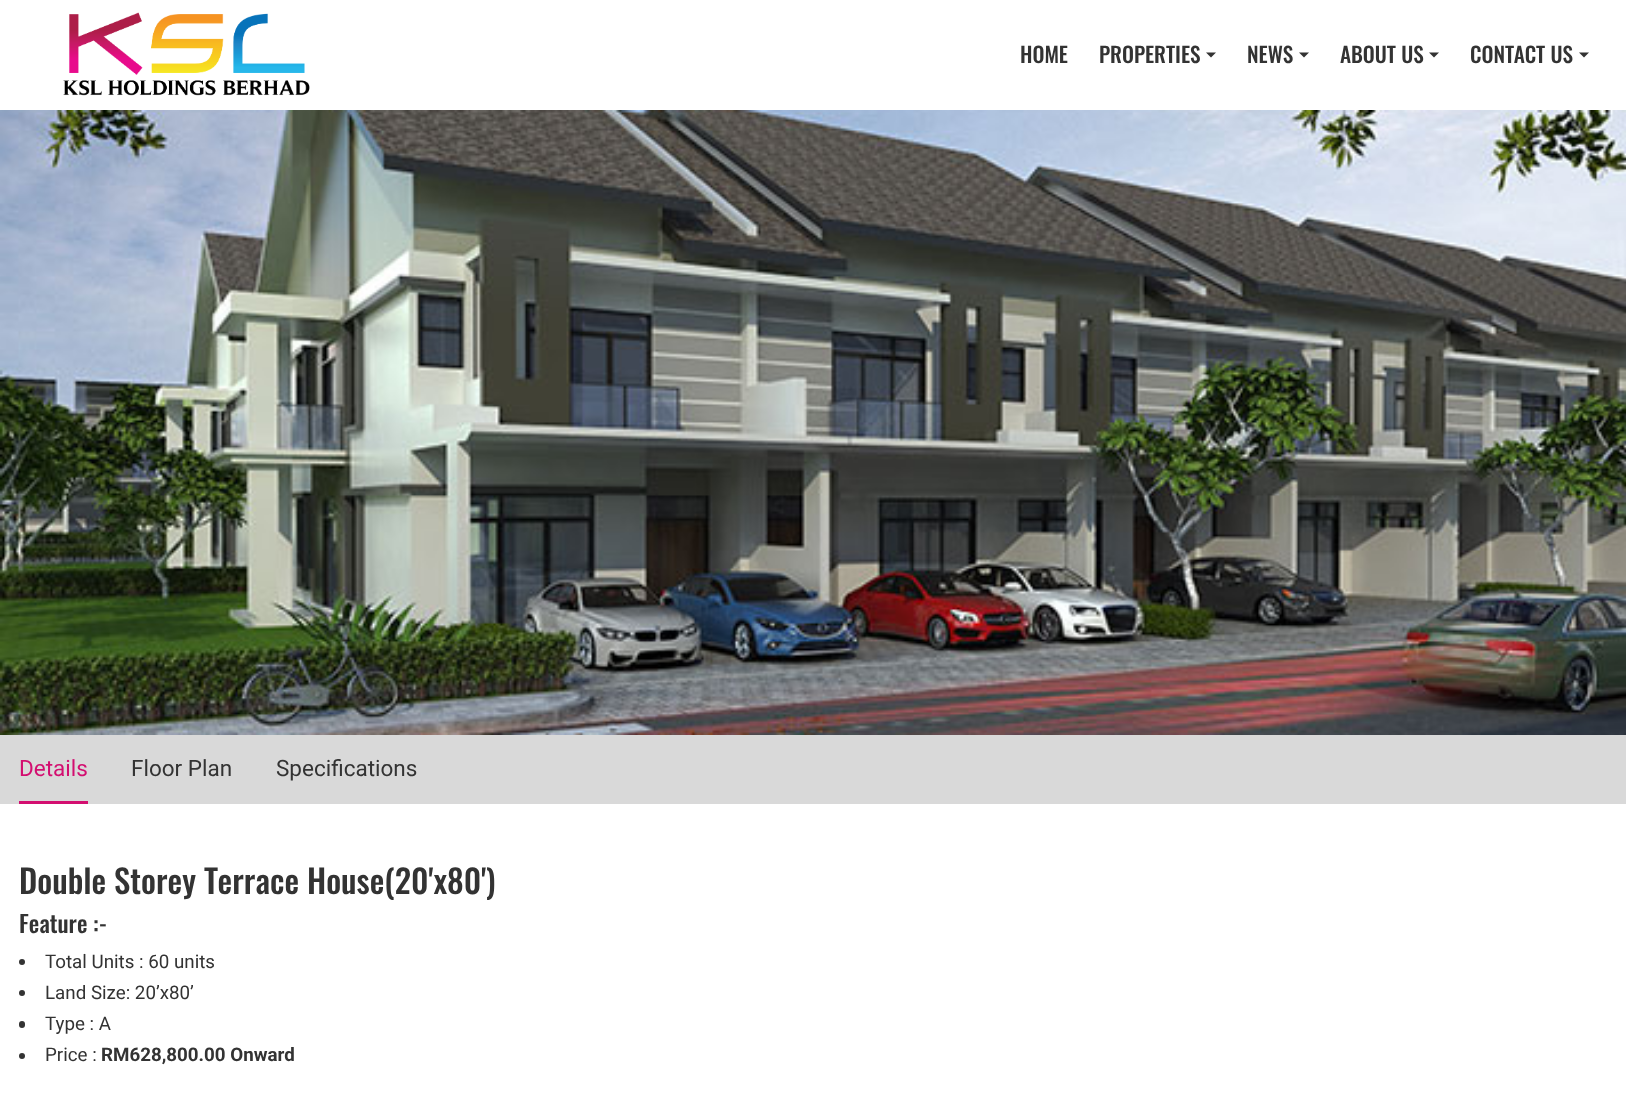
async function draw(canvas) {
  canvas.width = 1626
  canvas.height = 1107
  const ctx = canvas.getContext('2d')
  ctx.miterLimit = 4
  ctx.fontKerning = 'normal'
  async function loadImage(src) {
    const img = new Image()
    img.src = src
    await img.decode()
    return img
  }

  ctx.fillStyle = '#fff'
  ctx.fillRect(0, 0, 1626, 1107)
  ctx.drawImage(await loadImage('image0.png'), 63, 12, 247, 84)
  ctx.font = '500 21.25px Oswald'
  ctx.fillStyle = '#333'
  ctx.fillText('HOME', 1020, 63)
  ctx.fillText('PROPERTIES', 1099, 63)
  ctx.beginPath()
  ctx.moveTo(1206, 52.5)
  ctx.lineTo(1216, 52.5)
  ctx.lineTo(1211, 57.5)
  ctx.closePath()
  ctx.fill()
  ctx.fillText('NEWS', 1247, 63)
  ctx.beginPath()
  ctx.moveTo(1299, 52.5)
  ctx.lineTo(1309, 52.5)
  ctx.lineTo(1304, 57.5)
  ctx.closePath()
  ctx.fill()
  ctx.fillText('ABOUT US', 1340, 63)
  ctx.beginPath()
  ctx.moveTo(1429, 52.5)
  ctx.lineTo(1439, 52.5)
  ctx.lineTo(1434, 57.5)
  ctx.closePath()
  ctx.fill()
  ctx.fillText('CONTACT US', 1470, 63)
  ctx.beginPath()
  ctx.moveTo(1579, 52.5)
  ctx.lineTo(1589, 52.5)
  ctx.lineTo(1584, 57.5)
  ctx.closePath()
  ctx.fill()
  ctx.drawImage(await loadImage('image1.png'), 0, 110, 1626, 625)
  ctx.fillStyle = '#d9d9d9'
  ctx.fillRect(0, 735, 1626, 69)
  ctx.fillStyle = '#d30e70'
  ctx.fillRect(19, 801, 69, 3)
  ctx.font = '22.5px Roboto'
  ctx.fillText('Details', 19, 776)
  ctx.fillStyle = '#333'
  ctx.fillText('Floor Plan', 131, 776)
  ctx.fillText('Specifications', 276, 776)
  ctx.font = '500 32.75px Oswald'
  ctx.fillText('Double Storey Terrace House(20\'x80\')', 19, 894)
  ctx.font = '500 23.5px Oswald'
  ctx.fillText('Feature :-', 19, 933)
  ctx.beginPath()
  ctx.arc(22, 962, 3, 0, 2 * Math.PI)
  ctx.fill()
  ctx.font = '18.75px Roboto'
  ctx.fillText('Total Units : 60 units', 45, 968)
  ctx.beginPath()
  ctx.arc(22, 993, 3, 0, 2 * Math.PI)
  ctx.fill()
  ctx.fillText('Land Size: 20’x80’', 45, 999)
  ctx.beginPath()
  ctx.roundRect(19, 1021, 6, 7, 3)
  ctx.fill()
  ctx.fillText('Type : A', 45, 1030)
  ctx.beginPath()
  ctx.arc(22, 1056, 3, 0, 2 * Math.PI)
  ctx.fill()
  ctx.fillText('Price :', 45, 1061)
  ctx.font = 'bold 18.75px Roboto'
  ctx.fillText('RM628,800.00 Onward', 101, 1061)
}

draw(document.querySelector('canvas'))
